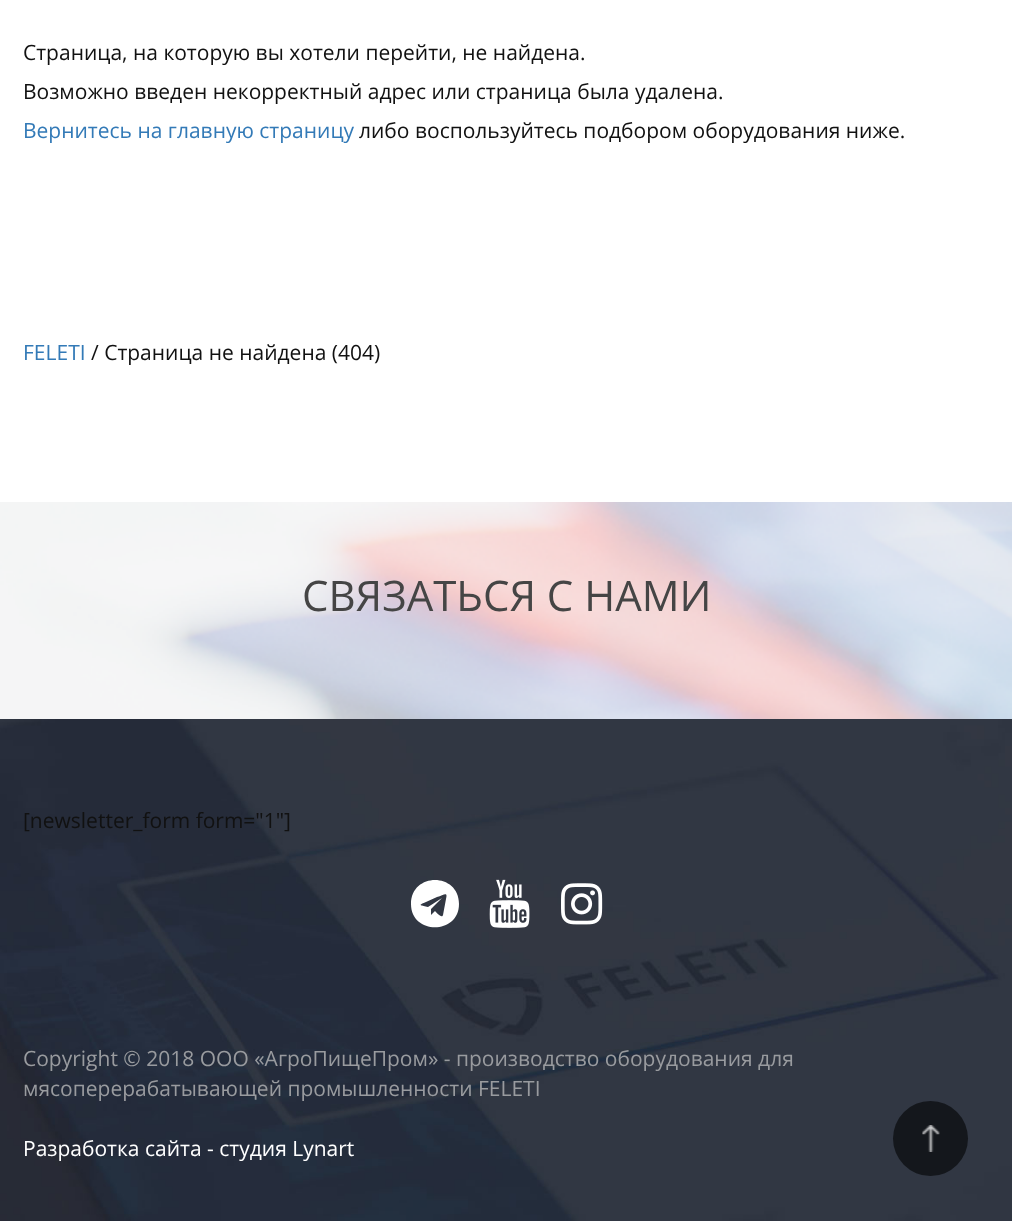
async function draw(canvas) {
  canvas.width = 1012
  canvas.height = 1221
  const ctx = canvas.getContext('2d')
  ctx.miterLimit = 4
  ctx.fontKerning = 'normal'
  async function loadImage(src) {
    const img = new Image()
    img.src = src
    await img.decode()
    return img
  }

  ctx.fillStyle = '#fff'
  ctx.fillRect(0, 0, 1012, 1221)
  ctx.font = '21px Open Sans'
  ctx.fillStyle = '#111'
  ctx.fillText('Страница, на которую вы хотели перейти, не найдена.', 23, 60)
  ctx.fillText('Возможно введен некорректный адрес или страница была удалена.', 23, 99)
  ctx.fillStyle = '#337ab7'
  ctx.fillText('Вернитесь на главную страницу', 23, 138)
  ctx.fillStyle = '#111'
  ctx.fillText('либо воспользуйтесь подбором оборудования ниже.', 359, 138)
  ctx.fillStyle = '#337ab7'
  ctx.fillText('FELETI', 23, 360)
  ctx.fillStyle = '#111'
  ctx.fillText('/ Страница не найдена (404)', 91, 360)
  ctx.drawImage(await loadImage('image0.png'), 0, 502, 1012, 217)
  ctx.font = '42px Open Sans'
  ctx.fillStyle = '#454545'
  ctx.fillText('СВЯЗАТЬСЯ С НАМИ', 302, 611)
  ctx.drawImage(await loadImage('image1.png'), 0, 719, 1012, 502)
  ctx.font = '21px Open Sans'
  ctx.fillStyle = '#111'
  ctx.fillText('[newsletter_form form="1"]', 23, 828)
  ctx.fillStyle = '#fff'
  ctx.beginPath()
  ctx.moveTo(443, 915)
  ctx.bezierCurveTo(442, 919, 436, 912, 435, 911)
  ctx.lineTo(431, 915)
  ctx.lineTo(431, 909)
  ctx.lineTo(442, 898)
  ctx.lineTo(428, 907)
  ctx.bezierCurveTo(422, 905, 416, 906, 426, 902)
  ctx.lineTo(437, 897)
  ctx.bezierCurveTo(444, 895, 448, 891, 446, 899)
  ctx.closePath()
  ctx.moveTo(459, 904)
  ctx.bezierCurveTo(459, 872, 411, 872, 411, 904)
  ctx.bezierCurveTo(411, 935, 459, 935, 459, 904)
  ctx.closePath()
  ctx.fill()
  ctx.drawImage(await loadImage('image2.png'), 489, 879, 41, 49)
  ctx.drawImage(await loadImage('image3.png'), 561, 883, 42, 42)
  ctx.fillStyle = '#999b9f'
  ctx.fillText('Copyright © 2018 ООО «АгроПищеПром» - производство оборудования для', 23, 1066)
  ctx.fillText('мясоперерабатывающей промышленности FELETI', 23, 1096)
  ctx.fillStyle = '#fff'
  ctx.fillText('Разработка сайта - студия Lynart', 23, 1156)
  ctx.fillStyle = '#14171c'
  ctx.beginPath()
  ctx.arc(930.5, 1138.5, 37.5, 0, 2 * Math.PI)
  ctx.fill()
  ctx.drawImage(await loadImage('image4.png'), 922, 1125, 18, 27)
}

draw(document.querySelector('canvas'))
